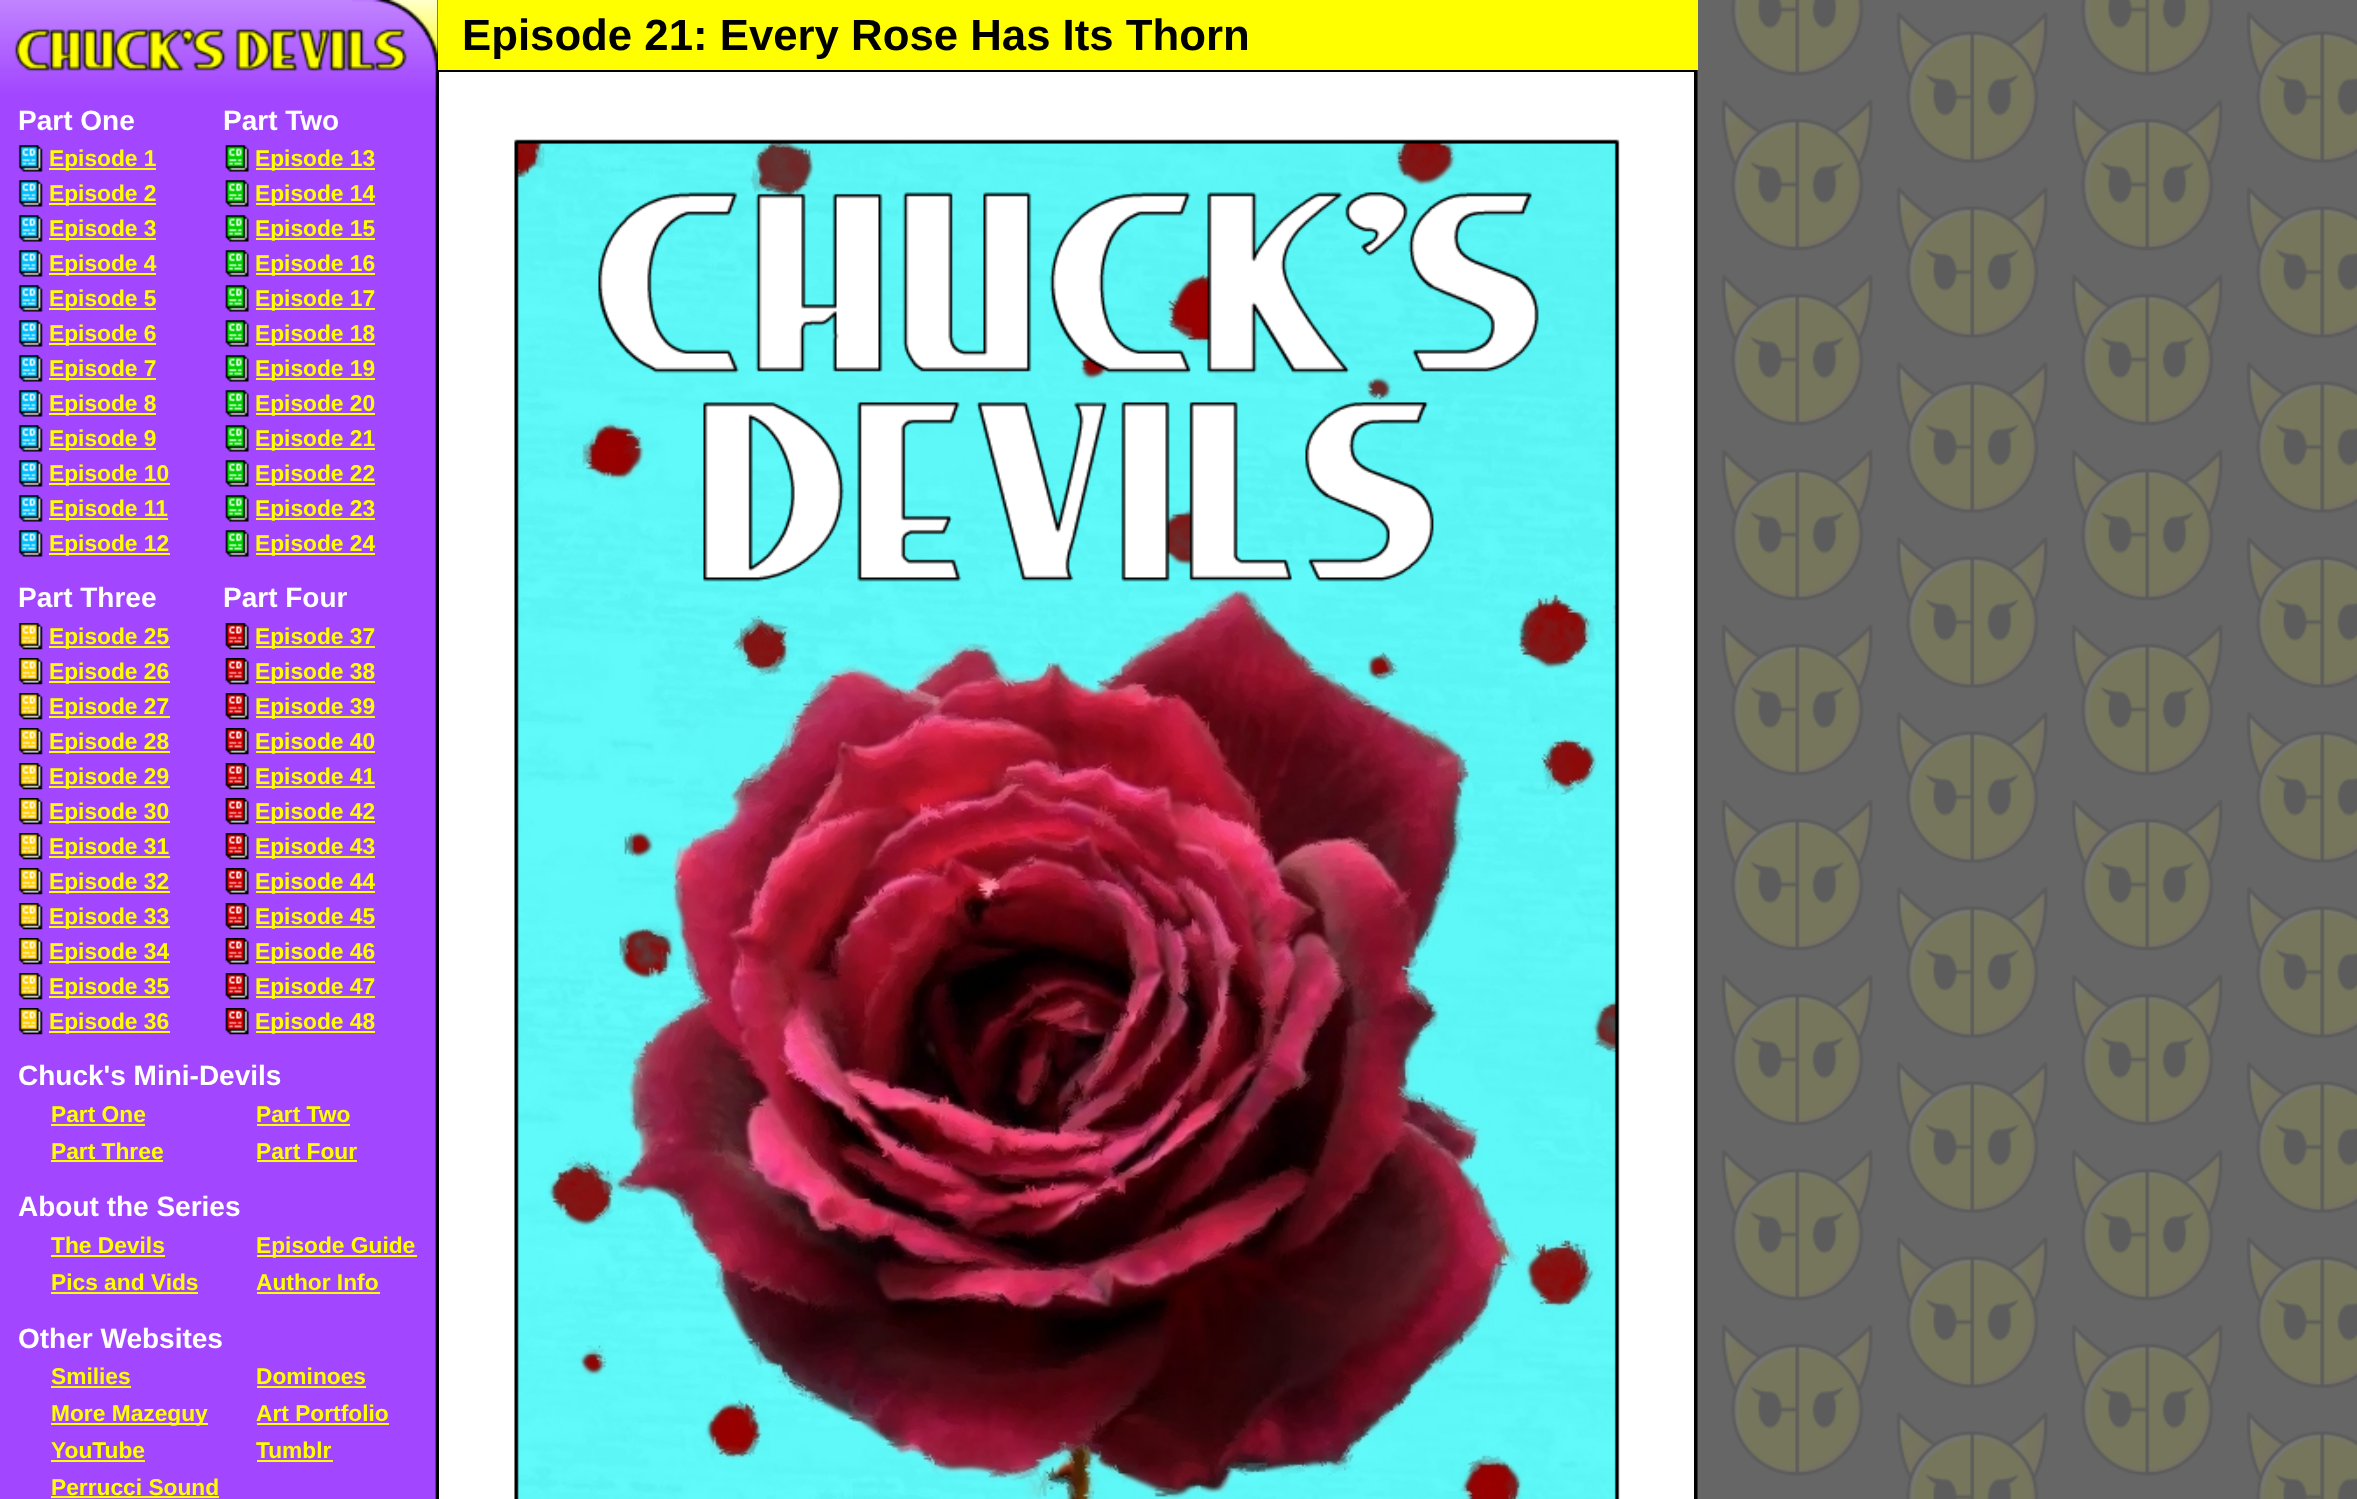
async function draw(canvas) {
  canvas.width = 2357
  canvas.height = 1499
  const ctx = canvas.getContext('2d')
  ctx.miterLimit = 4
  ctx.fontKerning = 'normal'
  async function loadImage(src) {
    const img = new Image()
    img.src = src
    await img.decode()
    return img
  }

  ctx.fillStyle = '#a247ff'
  ctx.fillRect(0, 0, 2357, 1499)
  ctx.drawImage(await loadImage('image0.png'), 435, 0, 1922, 1499)
  ctx.fillStyle = '#ff0'
  ctx.fillRect(438, 0, 1260, 70)
  ctx.font = 'bold 43.75px Liberation Sans'
  ctx.fillStyle = '#000'
  ctx.fillText('Episode 21: Every Rose Has Its Thorn', 462, 50)
  ctx.fillRect(438, 70, 1257, 1429)
  ctx.fillStyle = '#fff'
  ctx.fillRect(439, 72, 1255, 1427)
  ctx.drawImage(await loadImage('image1.png'), 514, 139, 1106, 1360)
  ctx.drawImage(await loadImage('image2.png'), 0, 0, 438, 96)
  ctx.font = 'bold 28px Liberation Sans'
  ctx.fillText('Part One', 18, 130)
  ctx.fillText('Part Two', 223, 130)
  ctx.drawImage(await loadImage('image3.png'), 18, 145, 25, 27)
  ctx.fillStyle = '#ff0'
  ctx.fillRect(49, 168, 107, 2)
  ctx.font = 'bold 22.75px Liberation Sans'
  ctx.fillText('Episode 1', 49, 166)
  ctx.drawImage(await loadImage('image4.png'), 225, 145, 24, 27)
  ctx.fillRect(256, 168, 119, 2)
  ctx.fillText('Episode 13', 255, 166)
  ctx.drawImage(await loadImage('image3.png'), 18, 180, 25, 27)
  ctx.fillRect(49, 203, 107, 2)
  ctx.fillText('Episode 2', 49, 201)
  ctx.drawImage(await loadImage('image4.png'), 225, 180, 24, 27)
  ctx.fillRect(256, 203, 119, 2)
  ctx.fillText('Episode 14', 255, 201)
  ctx.drawImage(await loadImage('image5.png'), 18, 215, 25, 27)
  ctx.fillRect(49, 238, 107, 2)
  ctx.fillText('Episode 3', 49, 236)
  ctx.drawImage(await loadImage('image6.png'), 225, 215, 24, 27)
  ctx.fillRect(256, 238, 119, 2)
  ctx.fillText('Episode 15', 255, 236)
  ctx.drawImage(await loadImage('image3.png'), 18, 250, 25, 27)
  ctx.fillRect(49, 273, 107, 2)
  ctx.fillText('Episode 4', 49, 271)
  ctx.drawImage(await loadImage('image4.png'), 225, 250, 24, 27)
  ctx.fillRect(256, 273, 119, 2)
  ctx.fillText('Episode 16', 255, 271)
  ctx.drawImage(await loadImage('image3.png'), 18, 285, 25, 27)
  ctx.fillRect(49, 308, 107, 2)
  ctx.fillText('Episode 5', 49, 306)
  ctx.drawImage(await loadImage('image4.png'), 225, 285, 24, 27)
  ctx.fillRect(256, 308, 119, 2)
  ctx.fillText('Episode 17', 255, 306)
  ctx.drawImage(await loadImage('image3.png'), 18, 320, 25, 27)
  ctx.fillRect(49, 343, 107, 2)
  ctx.fillText('Episode 6', 49, 341)
  ctx.drawImage(await loadImage('image4.png'), 225, 320, 24, 27)
  ctx.fillRect(256, 343, 119, 2)
  ctx.fillText('Episode 18', 255, 341)
  ctx.drawImage(await loadImage('image3.png'), 18, 355, 25, 27)
  ctx.fillRect(49, 378, 107, 2)
  ctx.fillText('Episode 7', 49, 376)
  ctx.drawImage(await loadImage('image4.png'), 225, 355, 24, 27)
  ctx.fillRect(256, 378, 119, 2)
  ctx.fillText('Episode 19', 255, 376)
  ctx.drawImage(await loadImage('image3.png'), 18, 390, 25, 27)
  ctx.fillRect(49, 413, 107, 2)
  ctx.fillText('Episode 8', 49, 411)
  ctx.drawImage(await loadImage('image4.png'), 225, 390, 24, 27)
  ctx.fillRect(256, 413, 119, 2)
  ctx.fillText('Episode 20', 255, 411)
  ctx.drawImage(await loadImage('image3.png'), 18, 425, 25, 27)
  ctx.fillRect(49, 448, 107, 2)
  ctx.fillText('Episode 9', 49, 446)
  ctx.drawImage(await loadImage('image4.png'), 225, 425, 24, 27)
  ctx.fillRect(256, 448, 119, 2)
  ctx.fillText('Episode 21', 255, 446)
  ctx.drawImage(await loadImage('image3.png'), 18, 460, 25, 27)
  ctx.fillRect(49, 483, 121, 2)
  ctx.fillText('Episode 10', 49, 481)
  ctx.drawImage(await loadImage('image4.png'), 225, 460, 24, 27)
  ctx.fillRect(256, 483, 119, 2)
  ctx.fillText('Episode 22', 255, 481)
  ctx.drawImage(await loadImage('image3.png'), 18, 495, 25, 27)
  ctx.fillRect(49, 518, 119, 2)
  ctx.fillText('Episode 11', 49, 516)
  ctx.drawImage(await loadImage('image4.png'), 225, 495, 24, 27)
  ctx.fillRect(256, 518, 119, 2)
  ctx.fillText('Episode 23', 255, 516)
  ctx.drawImage(await loadImage('image3.png'), 18, 530, 25, 27)
  ctx.fillRect(49, 553, 121, 2)
  ctx.fillText('Episode 12', 49, 551)
  ctx.drawImage(await loadImage('image4.png'), 225, 530, 24, 27)
  ctx.fillRect(256, 553, 119, 2)
  ctx.fillText('Episode 24', 255, 551)
  ctx.font = 'bold 28px Liberation Sans'
  ctx.fillStyle = '#fff'
  ctx.fillText('Part Three', 18, 607)
  ctx.fillText('Part Four', 223, 607)
  ctx.drawImage(await loadImage('image7.png'), 18, 623, 25, 27)
  ctx.fillStyle = '#ff0'
  ctx.fillRect(49, 646, 121, 2)
  ctx.font = 'bold 22.75px Liberation Sans'
  ctx.fillText('Episode 25', 49, 644)
  ctx.drawImage(await loadImage('image8.png'), 225, 623, 24, 27)
  ctx.fillRect(256, 646, 119, 2)
  ctx.fillText('Episode 37', 255, 644)
  ctx.drawImage(await loadImage('image7.png'), 18, 658, 25, 27)
  ctx.fillRect(49, 681, 121, 2)
  ctx.fillText('Episode 26', 49, 679)
  ctx.drawImage(await loadImage('image8.png'), 225, 658, 24, 27)
  ctx.fillRect(256, 681, 119, 2)
  ctx.fillText('Episode 38', 255, 679)
  ctx.drawImage(await loadImage('image7.png'), 18, 693, 25, 27)
  ctx.fillRect(49, 716, 121, 2)
  ctx.fillText('Episode 27', 49, 714)
  ctx.drawImage(await loadImage('image8.png'), 225, 693, 24, 27)
  ctx.fillRect(256, 716, 119, 2)
  ctx.fillText('Episode 39', 255, 714)
  ctx.drawImage(await loadImage('image7.png'), 18, 728, 25, 27)
  ctx.fillRect(49, 751, 121, 2)
  ctx.fillText('Episode 28', 49, 749)
  ctx.drawImage(await loadImage('image8.png'), 225, 728, 24, 27)
  ctx.fillRect(256, 751, 119, 2)
  ctx.fillText('Episode 40', 255, 749)
  ctx.drawImage(await loadImage('image7.png'), 18, 763, 25, 27)
  ctx.fillRect(49, 786, 121, 2)
  ctx.fillText('Episode 29', 49, 784)
  ctx.drawImage(await loadImage('image8.png'), 225, 763, 24, 27)
  ctx.fillRect(256, 786, 119, 2)
  ctx.fillText('Episode 41', 255, 784)
  ctx.drawImage(await loadImage('image7.png'), 18, 798, 25, 27)
  ctx.fillRect(49, 821, 121, 2)
  ctx.fillText('Episode 30', 49, 819)
  ctx.drawImage(await loadImage('image8.png'), 225, 798, 24, 27)
  ctx.fillRect(256, 821, 119, 2)
  ctx.fillText('Episode 42', 255, 819)
  ctx.drawImage(await loadImage('image7.png'), 18, 833, 25, 27)
  ctx.fillRect(49, 856, 121, 2)
  ctx.fillText('Episode 31', 49, 854)
  ctx.drawImage(await loadImage('image8.png'), 225, 833, 24, 27)
  ctx.fillRect(256, 856, 119, 2)
  ctx.fillText('Episode 43', 255, 854)
  ctx.drawImage(await loadImage('image7.png'), 18, 868, 25, 27)
  ctx.fillRect(49, 891, 121, 2)
  ctx.fillText('Episode 32', 49, 889)
  ctx.drawImage(await loadImage('image8.png'), 225, 868, 24, 27)
  ctx.fillRect(256, 891, 119, 2)
  ctx.fillText('Episode 44', 255, 889)
  ctx.drawImage(await loadImage('image7.png'), 18, 903, 25, 27)
  ctx.fillRect(49, 926, 121, 2)
  ctx.fillText('Episode 33', 49, 924)
  ctx.drawImage(await loadImage('image8.png'), 225, 903, 24, 27)
  ctx.fillRect(256, 926, 119, 2)
  ctx.fillText('Episode 45', 255, 924)
  ctx.drawImage(await loadImage('image7.png'), 18, 938, 25, 27)
  ctx.fillRect(49, 961, 121, 2)
  ctx.fillText('Episode 34', 49, 959)
  ctx.drawImage(await loadImage('image8.png'), 225, 938, 24, 27)
  ctx.fillRect(256, 961, 119, 2)
  ctx.fillText('Episode 46', 255, 959)
  ctx.drawImage(await loadImage('image7.png'), 18, 973, 25, 27)
  ctx.fillRect(49, 996, 121, 2)
  ctx.fillText('Episode 35', 49, 994)
  ctx.drawImage(await loadImage('image8.png'), 225, 973, 24, 27)
  ctx.fillRect(256, 996, 119, 2)
  ctx.fillText('Episode 47', 255, 994)
  ctx.drawImage(await loadImage('image7.png'), 18, 1008, 25, 27)
  ctx.fillRect(49, 1031, 121, 2)
  ctx.fillText('Episode 36', 49, 1029)
  ctx.drawImage(await loadImage('image8.png'), 225, 1008, 24, 27)
  ctx.fillRect(256, 1031, 119, 2)
  ctx.fillText('Episode 48', 255, 1029)
  ctx.font = 'bold 28px Liberation Sans'
  ctx.fillStyle = '#fff'
  ctx.fillText('Chuck\'s Mini-Devils', 18, 1085)
  ctx.font = 'bold 22.75px Liberation Sans'
  ctx.fillStyle = '#ff0'
  ctx.fillText('Part One', 51, 1122)
  ctx.fillRect(51, 1124, 94, 2)
  ctx.fillText('Part Two', 256, 1122)
  ctx.fillRect(257, 1124, 93, 2)
  ctx.fillText('Part Three', 51, 1159)
  ctx.fillRect(51, 1160, 112, 2)
  ctx.fillText('Part Four', 256, 1159)
  ctx.fillRect(257, 1160, 100, 2)
  ctx.font = 'bold 28px Liberation Sans'
  ctx.fillStyle = '#fff'
  ctx.fillText('About the Series', 18, 1216)
  ctx.font = 'bold 22.75px Liberation Sans'
  ctx.fillStyle = '#ff0'
  ctx.fillText('The Devils', 51, 1253)
  ctx.fillRect(51, 1255, 114, 2)
  ctx.fillRect(257, 1255, 160, 2)
  ctx.fillText('Episode Guide', 256, 1253)
  ctx.fillText('Pics and Vids', 51, 1290)
  ctx.fillRect(51, 1292, 147, 2)
  ctx.fillText('Author Info', 256, 1290)
  ctx.fillRect(257, 1292, 123, 2)
  ctx.font = 'bold 28px Liberation Sans'
  ctx.fillStyle = '#fff'
  ctx.fillText('Other Websites', 18, 1348)
  ctx.font = 'bold 22.75px Liberation Sans'
  ctx.fillStyle = '#ff0'
  ctx.fillText('Smilies', 51, 1384)
  ctx.fillRect(51, 1386, 80, 2)
  ctx.fillText('Dominoes', 256, 1384)
  ctx.fillRect(257, 1386, 109, 2)
  ctx.fillRect(51, 1423, 157, 2)
  ctx.fillText('More Mazeguy', 51, 1421)
  ctx.fillText('Art Portfolio', 256, 1421)
  ctx.fillRect(257, 1423, 132, 2)
  ctx.fillText('YouTube', 51, 1458)
  ctx.fillRect(51, 1460, 94, 2)
  ctx.fillText('Tumblr', 256, 1458)
  ctx.fillRect(257, 1460, 76, 2)
  ctx.fillText('Perrucci Sound', 51, 1495)
  ctx.fillRect(51, 1496, 168, 2)
}

draw(document.querySelector('canvas'))
